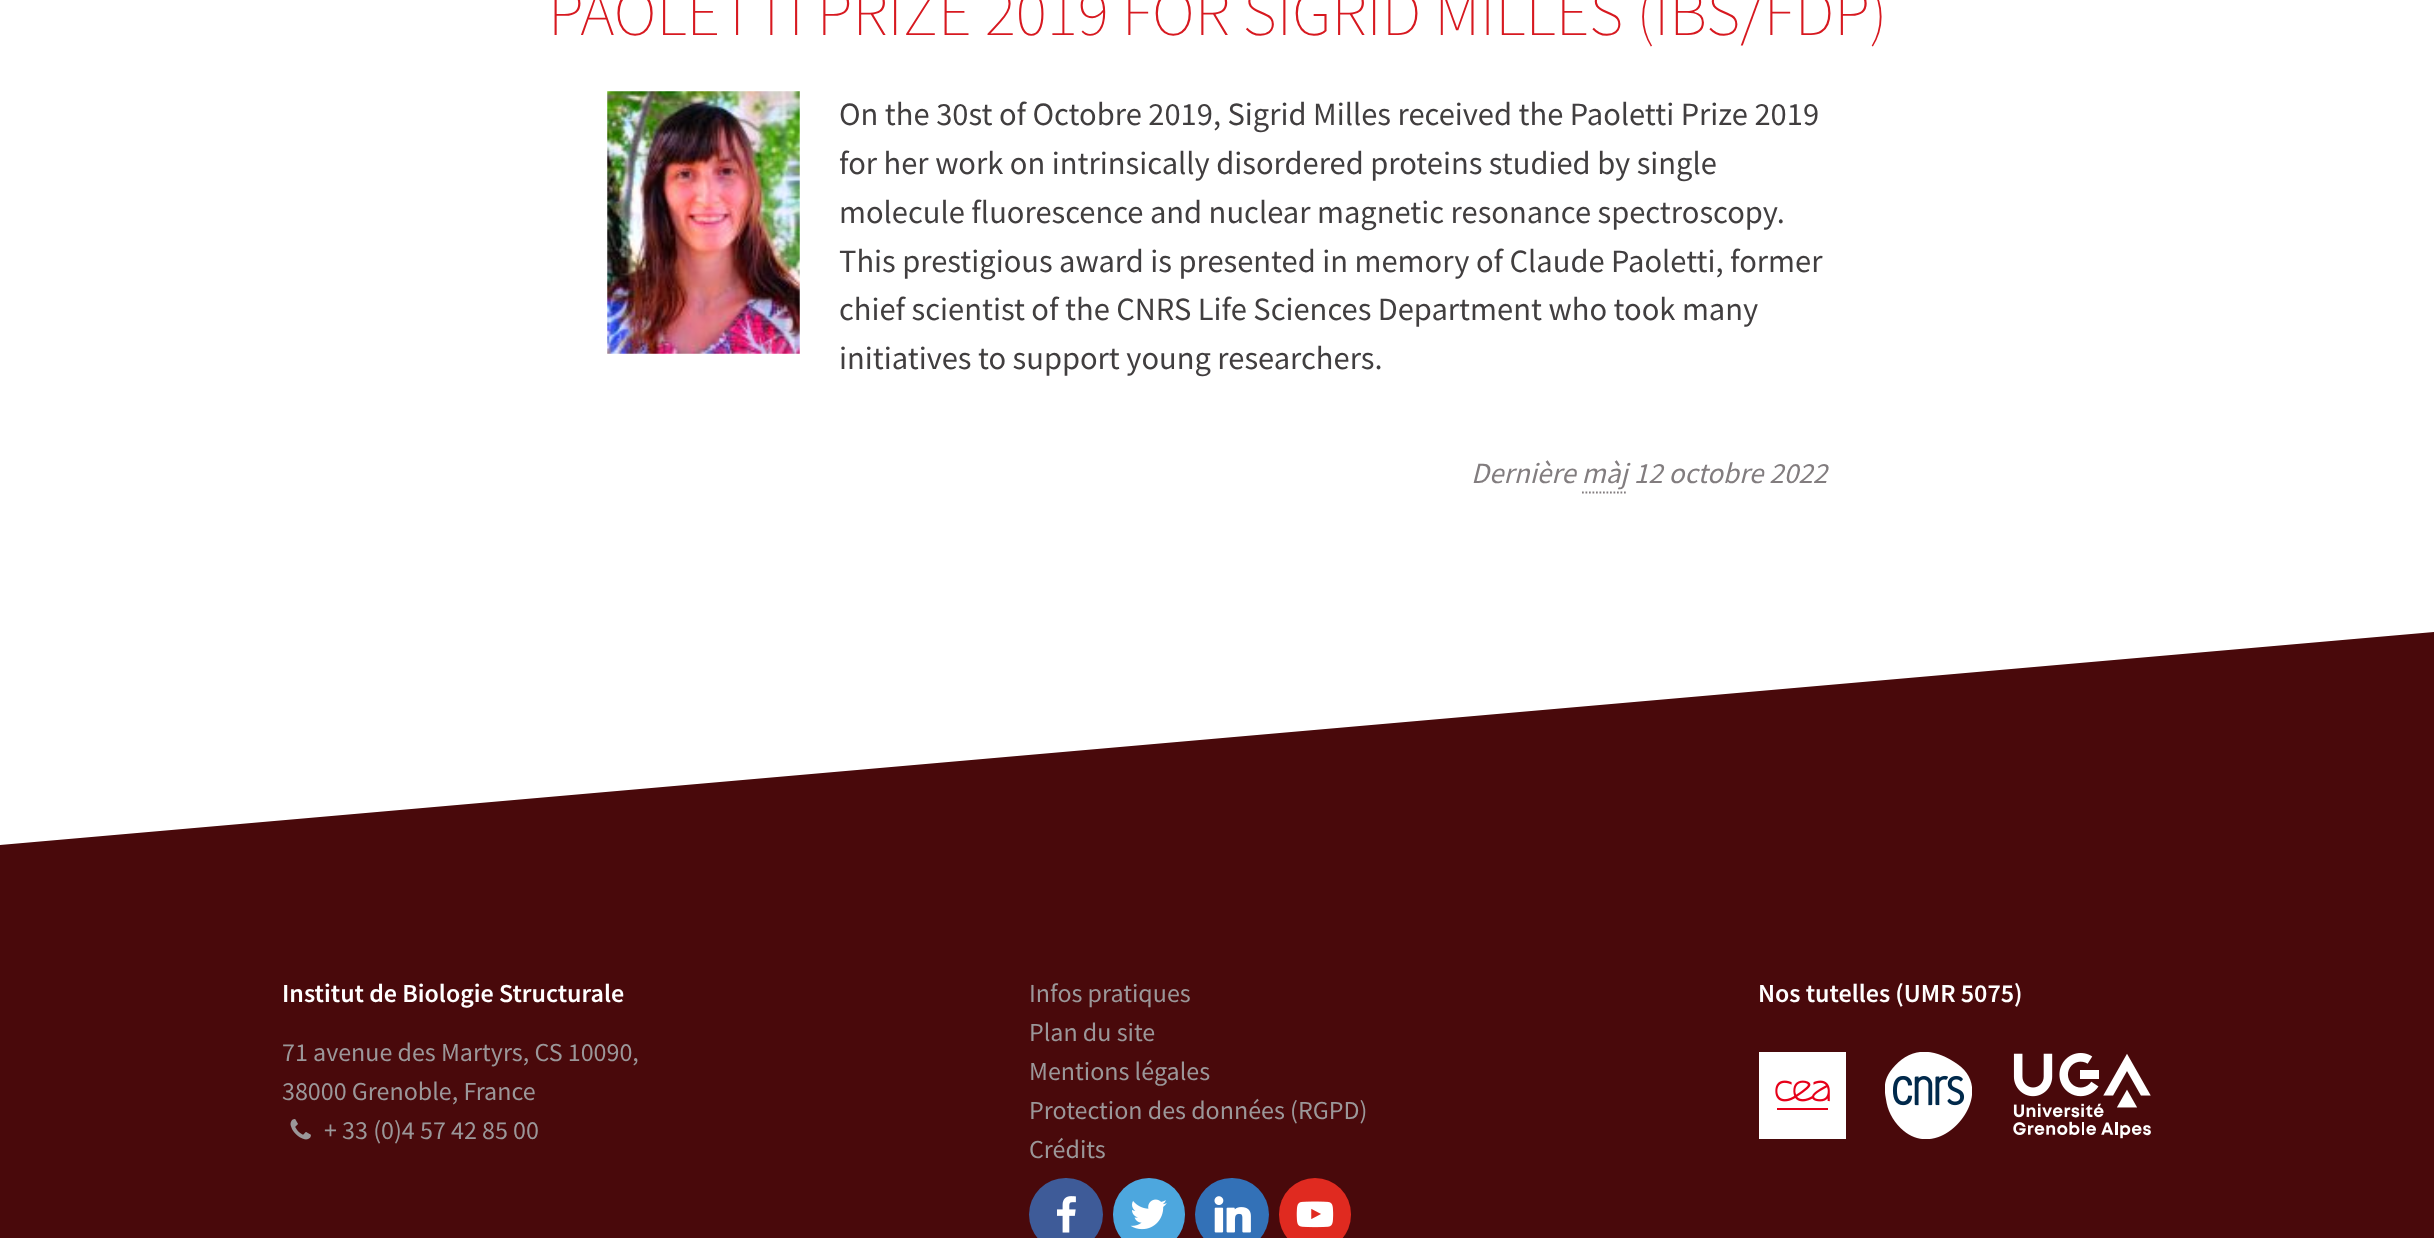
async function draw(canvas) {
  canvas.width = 2434
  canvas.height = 1238
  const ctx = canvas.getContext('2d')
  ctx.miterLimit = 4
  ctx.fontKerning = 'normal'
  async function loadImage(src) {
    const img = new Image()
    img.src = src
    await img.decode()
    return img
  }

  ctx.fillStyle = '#fff'
  ctx.fillRect(0, 0, 2434, 1238)
  ctx.font = '200 65.7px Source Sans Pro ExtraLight'
  ctx.fillStyle = '#d71920'
  ctx.fillText('PAOLETTI PRIZE 2019 FOR SIGRID MILLES (IBS/FDP)', 548, 35)
  ctx.drawImage(await loadImage('image0.png'), 607, 91, 193, 263)
  ctx.font = '32.5px Source Sans Pro'
  ctx.fillStyle = '#413e3f'
  ctx.fillText('On the 30st of Octobre 2019, Sigrid Milles received the Paoletti Prize 2019', 839, 125)
  ctx.fillText('for her work on intrinsically disordered proteins studied by single', 839, 174)
  ctx.fillText('molecule fluorescence and nuclear magnetic resonance spectroscopy.', 839, 223)
  ctx.fillText('This prestigious award is presented in memory of Claude Paoletti, former', 839, 272)
  ctx.fillText('chief scientist of the CNRS Life Sciences Department who took many', 839, 320)
  ctx.fillText('initiatives to support young researchers.', 839, 369)
  ctx.font = 'italic 29.25px Source Sans Pro'
  ctx.fillStyle = '#827d7f'
  ctx.fillText('Dernière màj 12 octobre 2022', 1471, 483)
  ctx.beginPath()
  ctx.moveTo(1582, 492.5)
  ctx.lineTo(1627.5, 492.5)
  ctx.strokeStyle = '#827d7f'
  ctx.lineWidth = 1.8
  ctx.setLineDash([1.75, 1.75])
  ctx.stroke()
  ctx.fillStyle = '#49090b'
  ctx.beginPath()
  ctx.moveTo(0, 845)
  ctx.lineTo(2434, 632)
  ctx.lineTo(2434, 1038)
  ctx.lineTo(0, 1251)
  ctx.closePath()
  ctx.fill()
  ctx.fillRect(149, 1038, 2285, 200)
  ctx.font = '600 26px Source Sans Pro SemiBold'
  ctx.fillStyle = '#fff'
  ctx.fillText('Institut de Biologie Structurale', 282, 1002)
  ctx.font = '26px Source Sans Pro'
  ctx.fillStyle = '#9b9799'
  ctx.fillText('71 avenue des Martyrs, CS 10090,', 282, 1061)
  ctx.fillText('38000 Grenoble, France', 282, 1100)
  ctx.drawImage(await loadImage('image1.png'), 290, 1119, 21, 21)
  ctx.fillText('+ 33 (0)4 57 42 85 00', 324, 1139)
  ctx.fillText('Infos pratiques', 1029, 1002)
  ctx.fillText('Plan du site', 1029, 1041)
  ctx.fillText('Mentions légales', 1029, 1080)
  ctx.fillText('Protection des données (RGPD)', 1029, 1119)
  ctx.fillText('Crédits', 1029, 1158)
  ctx.fillStyle = '#3e5b98'
  ctx.beginPath()
  ctx.roundRect(1029, 1178, 74, 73, 36.5)
  ctx.fill()
  ctx.drawImage(await loadImage('image2.png'), 1057, 1196, 19, 37)
  ctx.fillStyle = '#4da7de'
  ctx.beginPath()
  ctx.roundRect(1113, 1178, 72, 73, 36)
  ctx.fill()
  ctx.drawImage(await loadImage('image3.png'), 1130, 1199, 37, 31)
  ctx.fillStyle = '#3371b7'
  ctx.beginPath()
  ctx.roundRect(1195, 1178, 74, 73, 36.5)
  ctx.fill()
  ctx.drawImage(await loadImage('image4.png'), 1214, 1196, 37, 37)
  ctx.fillStyle = '#e02a20'
  ctx.beginPath()
  ctx.roundRect(1279, 1178, 72, 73, 36)
  ctx.fill()
  ctx.drawImage(await loadImage('image5.png'), 1296, 1201, 38, 27)
  ctx.font = '600 26px Source Sans Pro SemiBold'
  ctx.fillStyle = '#fff'
  ctx.fillText('Nos tutelles (UMR 5075)', 1758, 1002)
  ctx.drawImage(await loadImage('image6.png'), 1759, 1052, 87, 87)
  ctx.drawImage(await loadImage('image7.png'), 1885, 1052, 87, 87)
  ctx.drawImage(await loadImage('image8.png'), 2013, 1053, 138, 86)
}

draw(document.querySelector('canvas'))
